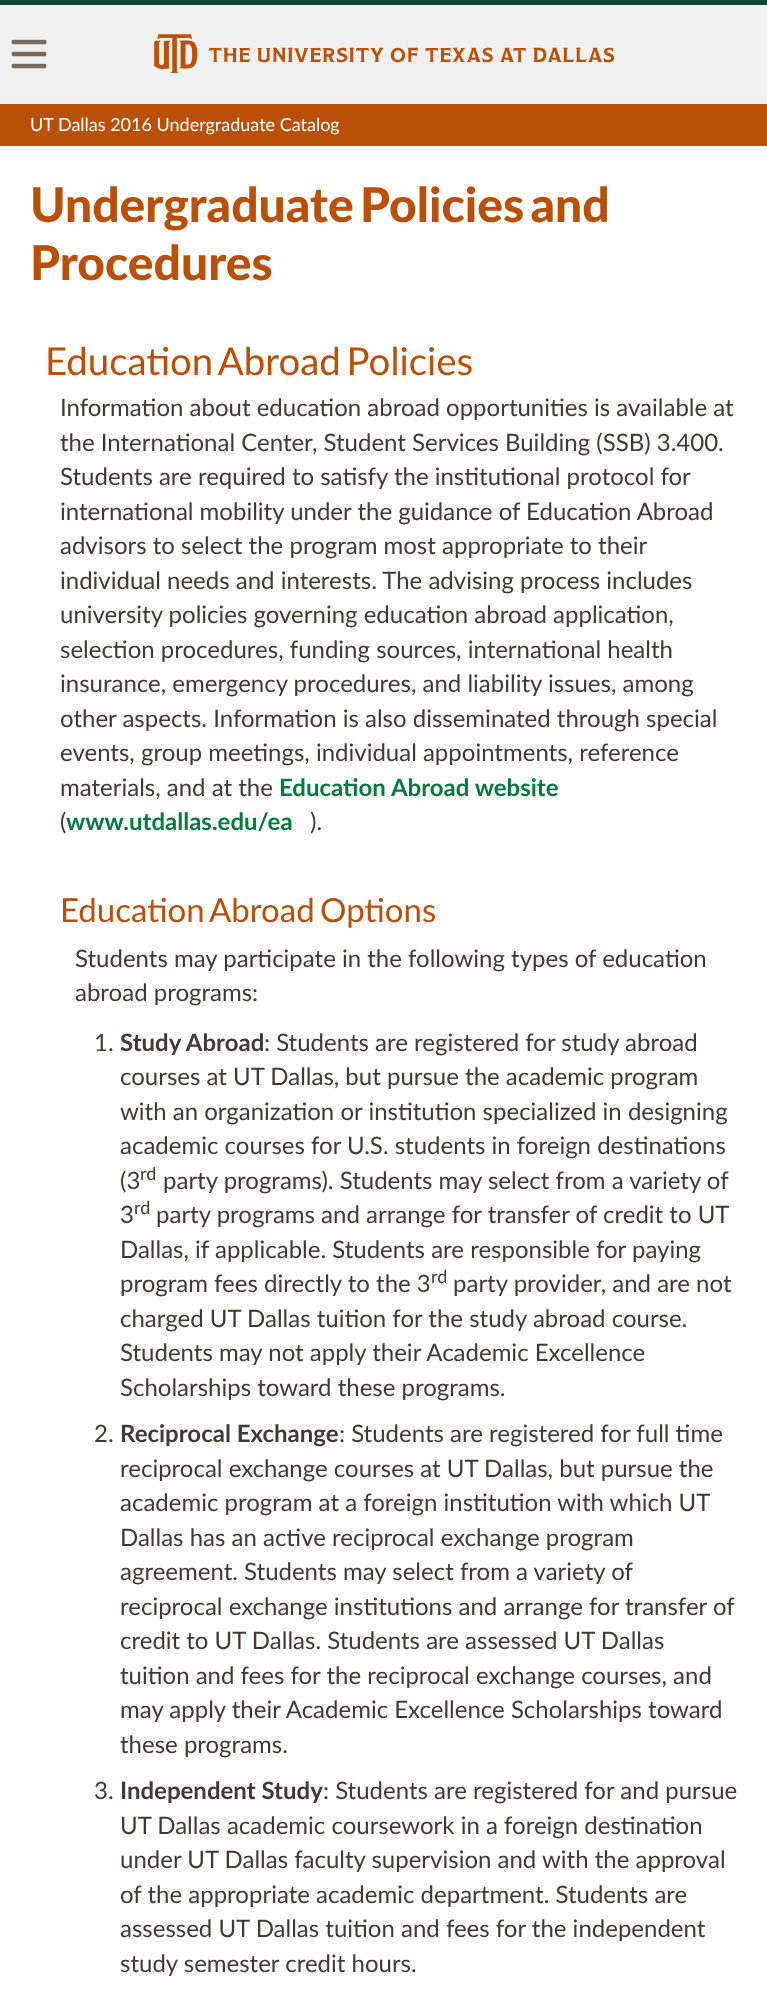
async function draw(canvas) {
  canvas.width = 767
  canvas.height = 2010
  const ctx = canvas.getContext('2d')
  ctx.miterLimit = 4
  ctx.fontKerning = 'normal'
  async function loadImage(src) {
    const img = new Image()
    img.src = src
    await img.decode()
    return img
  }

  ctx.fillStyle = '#f0f0f0'
  ctx.fillRect(0, 0, 767, 2010)
  ctx.fillStyle = '#154633'
  ctx.fillRect(0, 0, 767, 5)
  ctx.drawImage(await loadImage('image0.png'), 11, 39, 36, 30)
  ctx.drawImage(await loadImage('image1.png'), 154, 34, 461, 39)
  ctx.fillStyle = '#fff'
  ctx.fillRect(0, 146, 767, 1864)
  ctx.fillStyle = '#ba4f07'
  ctx.fillRect(0, 104, 767, 42)
  ctx.font = '18px Lato'
  ctx.fillStyle = '#fff'
  ctx.fillText('UT Dallas 2016 Undergraduate Catalog', 30, 131)
  ctx.wordSpacing = '-5px'
  ctx.font = '900 48px Lato'
  ctx.fillStyle = '#ba4f07'
  ctx.fillText('Undergraduate Policies and', 30, 222)
  ctx.wordSpacing = '0px'
  ctx.fillText('Procedures', 30, 280)
  ctx.wordSpacing = '-4px'
  ctx.font = '38.4px Lato'
  ctx.fillText('Education Abroad Policies', 45, 375)
  ctx.wordSpacing = '0px'
  ctx.font = '24px Lato'
  ctx.fillStyle = '#403a34'
  ctx.fillText('Information about education abroad opportunities is available at', 60, 416)
  ctx.fillText('the International Center, Student Services Building (SSB) 3.400.', 60, 451)
  ctx.fillText('Students are required to satisfy the institutional protocol for', 60, 485)
  ctx.fillText('international mobility under the guidance of Education Abroad', 60, 520)
  ctx.fillText('advisors to select the program most appropriate to their', 60, 554)
  ctx.fillText('individual needs and interests. The advising process includes', 60, 589)
  ctx.fillText('university policies governing education abroad application,', 60, 623)
  ctx.fillText('selection procedures, funding sources, international health', 60, 658)
  ctx.fillText('insurance, emergency procedures, and liability issues, among', 60, 692)
  ctx.fillText('other aspects. Information is also disseminated through special', 60, 727)
  ctx.fillText('events, group meetings, individual appointments, reference', 60, 761)
  ctx.fillText('materials, and at the', 60, 796)
  ctx.font = 'bold 24px Lato'
  ctx.fillStyle = '#037b3f'
  ctx.fillText('Education Abroad website', 279, 796)
  ctx.font = '24px Lato'
  ctx.fillStyle = '#403a34'
  ctx.fillText('(', 60, 830)
  ctx.font = 'bold 24px Lato'
  ctx.fillStyle = '#037b3f'
  ctx.fillText('www.utdallas.edu/ea', 66, 830)
  ctx.font = '24px Lato'
  ctx.fillStyle = '#403a34'
  ctx.fillText(').', 310, 830)
  ctx.wordSpacing = '-3px'
  ctx.font = '33px Lato'
  ctx.fillStyle = '#ba4f07'
  ctx.fillText('Education Abroad Options', 60, 922)
  ctx.wordSpacing = '0px'
  ctx.font = '24px Lato'
  ctx.fillStyle = '#403a34'
  ctx.fillText('Students may participate in the following types of education', 75, 967)
  ctx.fillText('abroad programs:', 75, 1001)
  ctx.fillText('1.', 94, 1051)
  ctx.font = 'bold 24px Lato'
  ctx.fillText('Study Abroad', 120, 1051)
  ctx.font = '24px Lato'
  ctx.fillText(': Students are registered for study abroad', 264, 1051)
  ctx.fillText('courses at UT Dallas, but pursue the academic program', 120, 1085)
  ctx.fillText('with an organization or institution specialized in designing', 120, 1120)
  ctx.fillText('academic courses for U.S. students in foreign destinations', 120, 1154)
  ctx.fillText('(3', 120, 1189)
  ctx.font = '18px Lato'
  ctx.fillText('rd', 140, 1180)
  ctx.font = '24px Lato'
  ctx.fillText('party programs). Students may select from a variety of', 163, 1189)
  ctx.fillText('3', 120, 1223)
  ctx.font = '18px Lato'
  ctx.fillText('rd', 134, 1214)
  ctx.font = '24px Lato'
  ctx.fillText('party programs and arrange for transfer of credit to UT', 156, 1223)
  ctx.fillText('Dallas, if applicable. Students are responsible for paying', 120, 1258)
  ctx.fillText('program fees directly to the 3', 120, 1292)
  ctx.font = '18px Lato'
  ctx.fillText('rd', 431, 1283)
  ctx.font = '24px Lato'
  ctx.fillText('party provider, and are not', 453, 1292)
  ctx.fillText('charged UT Dallas tuition for the study abroad course.', 120, 1327)
  ctx.fillText('Students may not apply their Academic Excellence', 120, 1361)
  ctx.fillText('Scholarships toward these programs.', 120, 1396)
  ctx.fillText('2.', 94, 1442)
  ctx.font = 'bold 24px Lato'
  ctx.fillText('Reciprocal Exchange', 120, 1442)
  ctx.font = '24px Lato'
  ctx.fillText(': Students are registered for full time', 339, 1442)
  ctx.fillText('reciprocal exchange courses at UT Dallas, but pursue the', 120, 1477)
  ctx.fillText('academic program at a foreign institution with which UT', 120, 1511)
  ctx.fillText('Dallas has an active reciprocal exchange program', 120, 1546)
  ctx.fillText('agreement. Students may select from a variety of', 120, 1580)
  ctx.fillText('reciprocal exchange institutions and arrange for transfer of', 120, 1615)
  ctx.fillText('credit to UT Dallas. Students are assessed UT Dallas', 120, 1649)
  ctx.fillText('tuition and fees for the reciprocal exchange courses, and', 120, 1684)
  ctx.fillText('may apply their Academic Excellence Scholarships toward', 120, 1718)
  ctx.fillText('these programs.', 120, 1753)
  ctx.fillText('3.', 94, 1799)
  ctx.font = 'bold 24px Lato'
  ctx.fillText('Independent Study', 120, 1799)
  ctx.font = '24px Lato'
  ctx.fillText(': Students are registered for and pursue', 323, 1799)
  ctx.fillText('UT Dallas academic coursework in a foreign destination', 120, 1834)
  ctx.fillText('under UT Dallas faculty supervision and with the approval', 120, 1868)
  ctx.fillText('of the appropriate academic department. Students are', 120, 1903)
  ctx.fillText('assessed UT Dallas tuition and fees for the independent', 120, 1937)
  ctx.fillText('study semester credit hours.', 120, 1972)
}

draw(document.querySelector('canvas'))
